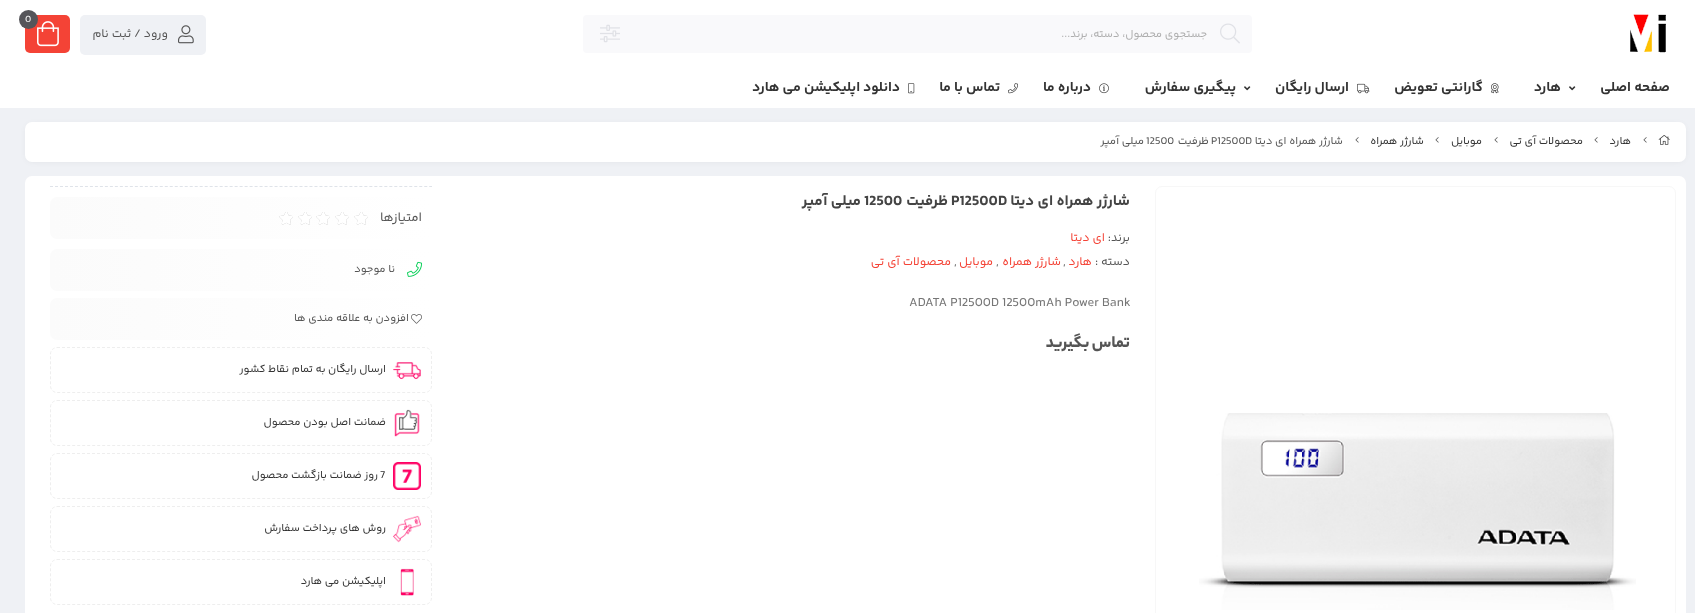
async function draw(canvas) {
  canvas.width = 1695
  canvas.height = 613
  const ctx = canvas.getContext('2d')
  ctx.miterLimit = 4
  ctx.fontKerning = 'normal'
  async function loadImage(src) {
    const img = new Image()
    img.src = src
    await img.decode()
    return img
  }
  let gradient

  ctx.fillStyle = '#eff1f5'
  ctx.fillRect(0, 0, 1695, 613)
  ctx.fillStyle = '#fff'
  ctx.fillRect(0, 0, 1695, 108)
  ctx.drawImage(await loadImage('image0.png'), 1630, 14, 36, 39)
  ctx.fillStyle = '#f9f9fb'
  ctx.beginPath()
  ctx.roundRect(583, 15, 669, 38, 4)
  ctx.fill()
  ctx.drawImage(await loadImage('image1.png'), 1220, 23, 20, 21)
  ctx.direction = 'rtl'
  ctx.font = '11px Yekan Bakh'
  ctx.fillStyle = '#adadad'
  ctx.fillText('جستجوی محصول، دسته، برند...', 1207, 37)
  ctx.drawImage(await loadImage('image2.png'), 600, 24, 20, 19)
  ctx.fillStyle = '#f44336'
  ctx.beginPath()
  ctx.roundRect(25, 15, 45, 38, 5)
  ctx.fill()
  ctx.drawImage(await loadImage('image3.png'), 37, 21, 22, 26)
  ctx.fillStyle = '#55555a'
  ctx.beginPath()
  ctx.arc(28.5, 19.5, 9.5, 0, 2 * Math.PI)
  ctx.fill()
  ctx.direction = 'ltr'
  ctx.font = '10px Yekan Bakh'
  ctx.fillStyle = '#fff'
  ctx.fillText('0', 25, 22)
  ctx.fillStyle = '#eff1f5'
  ctx.beginPath()
  ctx.roundRect(80, 15, 126, 40, 5)
  ctx.fill()
  ctx.drawImage(await loadImage('image4.png'), 178, 25, 16, 19)
  ctx.direction = 'rtl'
  ctx.font = '12px Yekan Bakh'
  ctx.fillStyle = '#555'
  ctx.fillText('ورود / ثبت نام', 168, 37)
  ctx.font = 'bold 14px Yekan Bakh'
  ctx.fillStyle = '#333'
  ctx.fillText('صفحه اصلی', 1670, 91)
  ctx.drawImage(await loadImage('image5.png'), 1569, 86, 7, 5)
  ctx.fillText('هارد', 1561, 91)
  ctx.drawImage(await loadImage('image6.png'), 1491, 83, 8, 11)
  ctx.fillText('گارانتی تعویض', 1483, 91)
  ctx.drawImage(await loadImage('image7.png'), 1357, 83, 13, 11)
  ctx.fillText('ارسال رایگان', 1349, 91)
  ctx.drawImage(await loadImage('image5.png'), 1244, 86, 7, 5)
  ctx.fillText('پیگیری سفارش', 1236, 91)
  ctx.drawImage(await loadImage('image8.png'), 1099, 83, 10, 11)
  ctx.fillText('درباره ما', 1091, 91)
  ctx.drawImage(await loadImage('image9.png'), 1008, 83, 10, 11)
  ctx.fillText('تماس با ما', 1000, 91)
  ctx.drawImage(await loadImage('image10.png'), 908, 83, 7, 11)
  ctx.fillText('دانلود اپلیکیشن می هارد', 900, 91)
  ctx.fillStyle = '#0000001a'
  ctx.filter = 'blur(3.5px)'
  ctx.beginPath()
  ctx.roundRect(28, 126, 1655, 34, 4)
  ctx.fill()
  ctx.filter = 'none'
  ctx.fillStyle = '#fff'
  ctx.beginPath()
  ctx.roundRect(25, 122, 1661, 40, 7)
  ctx.fill()
  ctx.drawImage(await loadImage('image11.png'), 1658, 135, 12, 10)
  ctx.drawImage(await loadImage('image12.png'), 1643, 137, 4, 6)
  ctx.font = '11px Yekan Bakh'
  ctx.fillStyle = '#333'
  ctx.fillText('هارد', 1631, 144)
  ctx.drawImage(await loadImage('image12.png'), 1594, 137, 4, 6)
  ctx.fillText('محصولات آی تی', 1583, 144)
  ctx.drawImage(await loadImage('image12.png'), 1494, 137, 4, 6)
  ctx.fillText('موبایل', 1482, 144)
  ctx.drawImage(await loadImage('image12.png'), 1435, 137, 4, 6)
  ctx.fillText('شارژر همراه', 1424, 144)
  ctx.drawImage(await loadImage('image12.png'), 1355, 137, 4, 6)
  ctx.fillStyle = '#555'
  ctx.fillText('شارژر همراه ای دیتا', 1343, 144)
  ctx.direction = 'ltr'
  ctx.fillText('P12500D', 1211, 144)
  ctx.direction = 'rtl'
  ctx.fillText('ظرفیت', 1209, 144)
  ctx.direction = 'ltr'
  ctx.fillText('12500', 1146, 144)
  ctx.direction = 'rtl'
  ctx.fillText('میلی آمپر', 1144, 144)
  ctx.fillStyle = '#fff'
  ctx.beginPath()
  ctx.roundRect(25, 176, 1661, 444, 7)
  ctx.fill()
  ctx.beginPath()
  ctx.roundRect(1155.5, 186.5, 520, 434, 6.5)
  ctx.strokeStyle = '#f7f7f7'
  ctx.stroke()
  ctx.drawImage(await loadImage('image13.png'), 1199, 413, 437, 197)
  ctx.font = 'bold 15px Yekan Bakh'
  ctx.fillStyle = '#444'
  ctx.fillText('شارژر همراه ای دیتا', 1130, 205)
  ctx.direction = 'ltr'
  ctx.fillText('P12500D', 951, 205)
  ctx.direction = 'rtl'
  ctx.fillText('ظرفیت', 948, 205)
  ctx.direction = 'ltr'
  ctx.fillText('12500', 864, 205)
  ctx.direction = 'rtl'
  ctx.fillText('میلی آمپر', 861, 205)
  ctx.font = '12px Yekan Bakh'
  ctx.fillStyle = '#555'
  ctx.fillText('برند:', 1130, 241)
  ctx.fillStyle = '#f44336'
  ctx.fillText('ای دیتا', 1105, 241)
  ctx.fillStyle = '#555'
  ctx.fillText('دسته :', 1130, 265)
  ctx.fillStyle = '#f44336'
  ctx.fillText('هارد', 1092, 265)
  ctx.fillText('شارژر همراه', 1061, 265)
  ctx.fillText('موبایل', 993, 265)
  ctx.fillText('محصولات آی تی', 951, 265)
  ctx.direction = 'ltr'
  ctx.fillStyle = '#555'
  ctx.fillText(',', 1063, 265)
  ctx.fillText(',', 996, 265)
  ctx.fillText(',', 954, 265)
  ctx.font = '13px Yekan Bakh'
  ctx.fillStyle = '#767676'
  ctx.fillText('ADATA P12500D 12500mAh Power Bank', 909, 306)
  ctx.direction = 'rtl'
  ctx.font = '900 17.5px Yekan Bakh'
  ctx.fillStyle = '#555'
  ctx.fillText('تماس بگیرید', 1130, 347)
  ctx.beginPath()
  ctx.moveTo(50, 186.5)
  ctx.lineTo(432, 186.5)
  ctx.strokeStyle = '#dfe3e9'
  ctx.setLineDash([3, 1.99])
  ctx.stroke()
  gradient = ctx.createLinearGradient(50, 218, 432, 218)
  gradient.addColorStop(0, '#fbfbfb')
  gradient.addColorStop(1, '#fff')
  ctx.fillStyle = gradient
  ctx.beginPath()
  ctx.roundRect(50, 197, 382, 42, 7)
  ctx.fill()
  ctx.font = '13px Yekan Bakh'
  ctx.fillStyle = '#555'
  ctx.fillText('امتیازها', 422, 221)
  ctx.drawImage(await loadImage('image14.png'), 354, 212, 14, 13)
  ctx.drawImage(await loadImage('image14.png'), 335, 212, 14, 13)
  ctx.drawImage(await loadImage('image14.png'), 316, 212, 14, 13)
  ctx.drawImage(await loadImage('image14.png'), 298, 212, 14, 13)
  ctx.drawImage(await loadImage('image15.png'), 279, 212, 14, 13)
  ctx.drawImage(await loadImage('image16.png'), 354, 212, 14, 13)
  ctx.drawImage(await loadImage('image16.png'), 335, 212, 14, 13)
  ctx.drawImage(await loadImage('image16.png'), 316, 212, 14, 13)
  ctx.drawImage(await loadImage('image16.png'), 298, 212, 14, 13)
  ctx.drawImage(await loadImage('image17.png'), 279, 212, 14, 13)
  gradient = ctx.createLinearGradient(50, 270, 432, 270)
  gradient.addColorStop(0, '#fbfbfb')
  gradient.addColorStop(1, '#fff')
  ctx.fillStyle = gradient
  ctx.beginPath()
  ctx.roundRect(50, 249, 382, 42, 7)
  ctx.fill()
  ctx.drawImage(await loadImage('image18.png'), 407, 261, 15, 16)
  ctx.font = '11px Yekan Bakh'
  ctx.fillStyle = '#555'
  ctx.fillText('نا موجود', 395, 272)
  gradient = ctx.createLinearGradient(50, 319, 432, 319)
  gradient.addColorStop(0, '#fbfbfb')
  gradient.addColorStop(1, '#fff')
  ctx.fillStyle = gradient
  ctx.beginPath()
  ctx.roundRect(50, 298, 382, 42, 7)
  ctx.fill()
  ctx.drawImage(await loadImage('image19.png'), 411, 314, 11, 10)
  ctx.fillStyle = '#555'
  ctx.fillText('افزودن به علاقه مندی ها', 409, 321)
  ctx.beginPath()
  ctx.moveTo(57, 347.5)
  ctx.lineTo(425, 347.5)
  ctx.bezierCurveTo(428.5, 347.5, 431.5, 350.5, 431.5, 354)
  ctx.lineTo(431.5, 386)
  ctx.bezierCurveTo(431.5, 389.5, 428.5, 392.5, 425, 392.5)
  ctx.lineTo(57, 392.5)
  ctx.bezierCurveTo(53.5, 392.5, 50.5, 389.5, 50.5, 386)
  ctx.lineTo(50.5, 354)
  ctx.bezierCurveTo(50.5, 350.5, 53.5, 347.5, 57, 347.5)
  ctx.closePath()
  ctx.strokeStyle = '#eee'
  ctx.setLineDash([3, 2])
  ctx.stroke()
  ctx.drawImage(await loadImage('image20.png'), 393, 362, 28, 18)
  ctx.fillStyle = '#333'
  ctx.fillText('ارسال رایگان به تمام نقاط کشور', 386, 372)
  ctx.beginPath()
  ctx.moveTo(57, 400.5)
  ctx.lineTo(425, 400.5)
  ctx.bezierCurveTo(428.5, 400.5, 431.5, 403.5, 431.5, 407)
  ctx.lineTo(431.5, 439)
  ctx.bezierCurveTo(431.5, 442.5, 428.5, 445.5, 425, 445.5)
  ctx.lineTo(57, 445.5)
  ctx.bezierCurveTo(53.5, 445.5, 50.5, 442.5, 50.5, 439)
  ctx.lineTo(50.5, 407)
  ctx.bezierCurveTo(50.5, 403.5, 53.5, 400.5, 57, 400.5)
  ctx.closePath()
  ctx.stroke()
  ctx.drawImage(await loadImage('image21.png'), 394, 409, 26, 28)
  ctx.fillText('ضمانت اصل بودن محصول', 386, 425)
  ctx.beginPath()
  ctx.moveTo(57, 453.5)
  ctx.lineTo(425, 453.5)
  ctx.bezierCurveTo(428.5, 453.5, 431.5, 456.5, 431.5, 460)
  ctx.lineTo(431.5, 492)
  ctx.bezierCurveTo(431.5, 495.5, 428.5, 498.5, 425, 498.5)
  ctx.lineTo(57, 498.5)
  ctx.bezierCurveTo(53.5, 498.5, 50.5, 495.5, 50.5, 492)
  ctx.lineTo(50.5, 460)
  ctx.bezierCurveTo(50.5, 456.5, 53.5, 453.5, 57, 453.5)
  ctx.closePath()
  ctx.stroke()
  ctx.drawImage(await loadImage('image22.png'), 393, 462, 28, 28)
  ctx.direction = 'ltr'
  ctx.fillText('7', 380, 478)
  ctx.direction = 'rtl'
  ctx.fillText('روز ضمانت بازگشت محصول', 378, 478)
  ctx.beginPath()
  ctx.moveTo(57, 506.5)
  ctx.lineTo(425, 506.5)
  ctx.bezierCurveTo(428.5, 506.5, 431.5, 509.5, 431.5, 513)
  ctx.lineTo(431.5, 545)
  ctx.bezierCurveTo(431.5, 548.5, 428.5, 551.5, 425, 551.5)
  ctx.lineTo(57, 551.5)
  ctx.bezierCurveTo(53.5, 551.5, 50.5, 548.5, 50.5, 545)
  ctx.lineTo(50.5, 513)
  ctx.bezierCurveTo(50.5, 509.5, 53.5, 506.5, 57, 506.5)
  ctx.closePath()
  ctx.stroke()
  ctx.drawImage(await loadImage('image23.png'), 393, 515, 28, 28)
  ctx.fillText('روش های پرداخت سفارش', 386, 531)
  ctx.beginPath()
  ctx.moveTo(57, 559.5)
  ctx.lineTo(425, 559.5)
  ctx.bezierCurveTo(428.5, 559.5, 431.5, 562.5, 431.5, 566)
  ctx.lineTo(431.5, 598)
  ctx.bezierCurveTo(431.5, 601.5, 428.5, 604.5, 425, 604.5)
  ctx.lineTo(57, 604.5)
  ctx.bezierCurveTo(53.5, 604.5, 50.5, 601.5, 50.5, 598)
  ctx.lineTo(50.5, 566)
  ctx.bezierCurveTo(50.5, 562.5, 53.5, 559.5, 57, 559.5)
  ctx.closePath()
  ctx.stroke()
  ctx.drawImage(await loadImage('image24.png'), 400, 568, 14, 28)
  ctx.fillText('اپلیکیشن می هارد', 386, 584)
}

draw(document.querySelector('canvas'))
